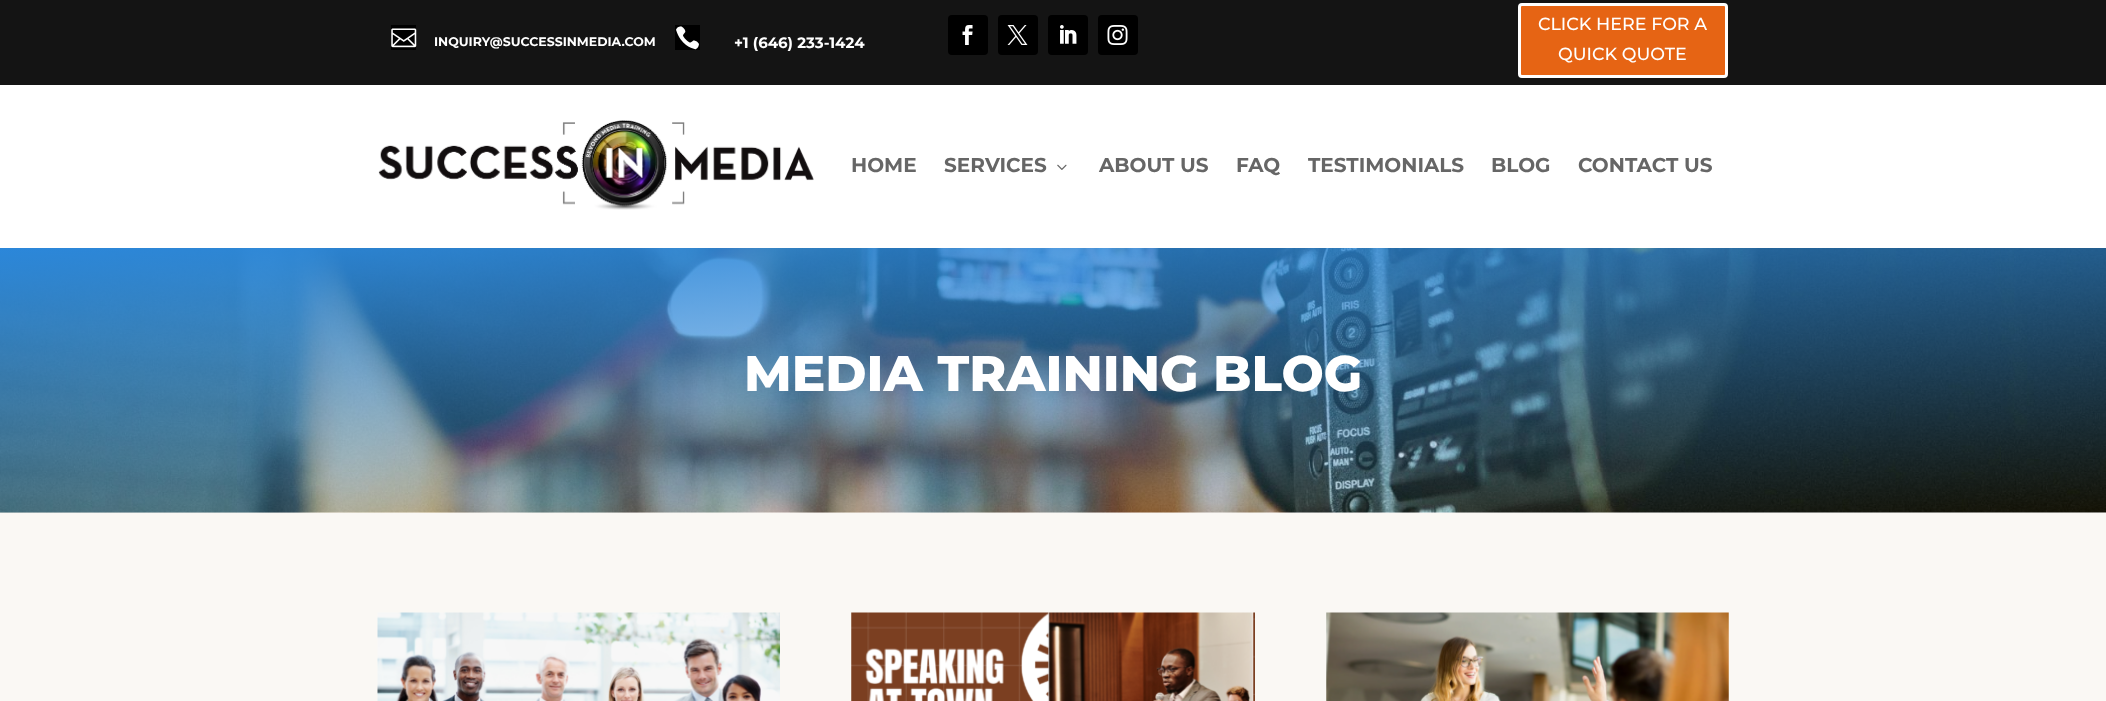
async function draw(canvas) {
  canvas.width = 2106
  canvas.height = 701
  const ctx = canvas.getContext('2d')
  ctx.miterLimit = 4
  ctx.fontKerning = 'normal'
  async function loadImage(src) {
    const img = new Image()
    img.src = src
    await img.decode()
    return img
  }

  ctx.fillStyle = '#fff'
  ctx.fillRect(0, 0, 2106, 701)
  ctx.fillStyle = '#141414'
  ctx.fillRect(0, 0, 2106, 85)
  ctx.fillStyle = '#000'
  ctx.fillRect(391, 25, 25, 25)
  ctx.drawImage(await loadImage('image0.png'), 391, 28, 26, 20)
  ctx.font = '100 12.5px "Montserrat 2"'
  ctx.fillStyle = '#fff'
  ctx.fillText('INQUIRY@SUCCESSINMEDIA.COM', 434, 46)
  ctx.fillStyle = '#000'
  ctx.fillRect(675, 25, 25, 25)
  ctx.drawImage(await loadImage('image1.png'), 676, 26, 23, 24)
  ctx.font = '100 15px "Montserrat 2"'
  ctx.fillStyle = '#fff'
  ctx.fillText('+1 (646) 233-1424', 734, 48)
  ctx.fillStyle = '#000'
  ctx.beginPath()
  ctx.roundRect(948, 15, 40, 40, 4)
  ctx.fill()
  ctx.drawImage(await loadImage('image2.png'), 962, 25, 11, 20)
  ctx.beginPath()
  ctx.roundRect(998, 15, 40, 40, 4)
  ctx.fill()
  ctx.drawImage(await loadImage('image3.png'), 1007, 25, 21, 20)
  ctx.beginPath()
  ctx.roundRect(1048, 15, 40, 40, 4)
  ctx.fill()
  ctx.drawImage(await loadImage('image4.png'), 1060, 25, 17, 19)
  ctx.beginPath()
  ctx.roundRect(1098, 15, 40, 40, 4)
  ctx.fill()
  ctx.drawImage(await loadImage('image5.png'), 1107, 25, 21, 20)
  ctx.fillStyle = '#e66414'
  ctx.beginPath()
  ctx.roundRect(1519.5, 4.5, 207, 72, 2.5)
  ctx.fill()
  ctx.strokeStyle = '#fff'
  ctx.lineWidth = 3
  ctx.stroke()
  ctx.font = '100 17.5px "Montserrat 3"'
  ctx.fillStyle = '#fff'
  ctx.fillText('CLICK HERE FOR A', 1538, 30)
  ctx.fillText('QUICK QUOTE', 1558, 60)
  ctx.drawImage(await loadImage('image6.png'), 378, 120, 436, 90)
  ctx.font = '100 20px "Montserrat 2"'
  ctx.fillStyle = '#666'
  ctx.fillText('HOME', 851, 172)
  ctx.fillText('SERVICES', 944, 172)
  ctx.drawImage(await loadImage('image7.png'), 1057, 164, 10, 6)
  ctx.fillText('ABOUT US', 1099, 172)
  ctx.fillText('FAQ', 1236, 172)
  ctx.fillText('TESTIMONIALS', 1308, 172)
  ctx.fillText('BLOG', 1491, 172)
  ctx.fillText('CONTACT US', 1578, 172)
  ctx.drawImage(await loadImage('image8.png'), 0, 248, 2106, 265)
  ctx.font = '100 50px Montserrat'
  ctx.fillStyle = '#fff'
  ctx.fillText('MEDIA TRAINING BLOG', 744, 391)
  ctx.fillStyle = '#faf8f4'
  ctx.fillRect(0, 513, 2106, 188)
  ctx.drawImage(await loadImage('image9.png'), 377, 612, 403, 89)
  ctx.drawImage(await loadImage('image10.png'), 851, 612, 404, 89)
  ctx.drawImage(await loadImage('image11.png'), 1326, 612, 403, 89)
}

draw(document.querySelector('canvas'))
